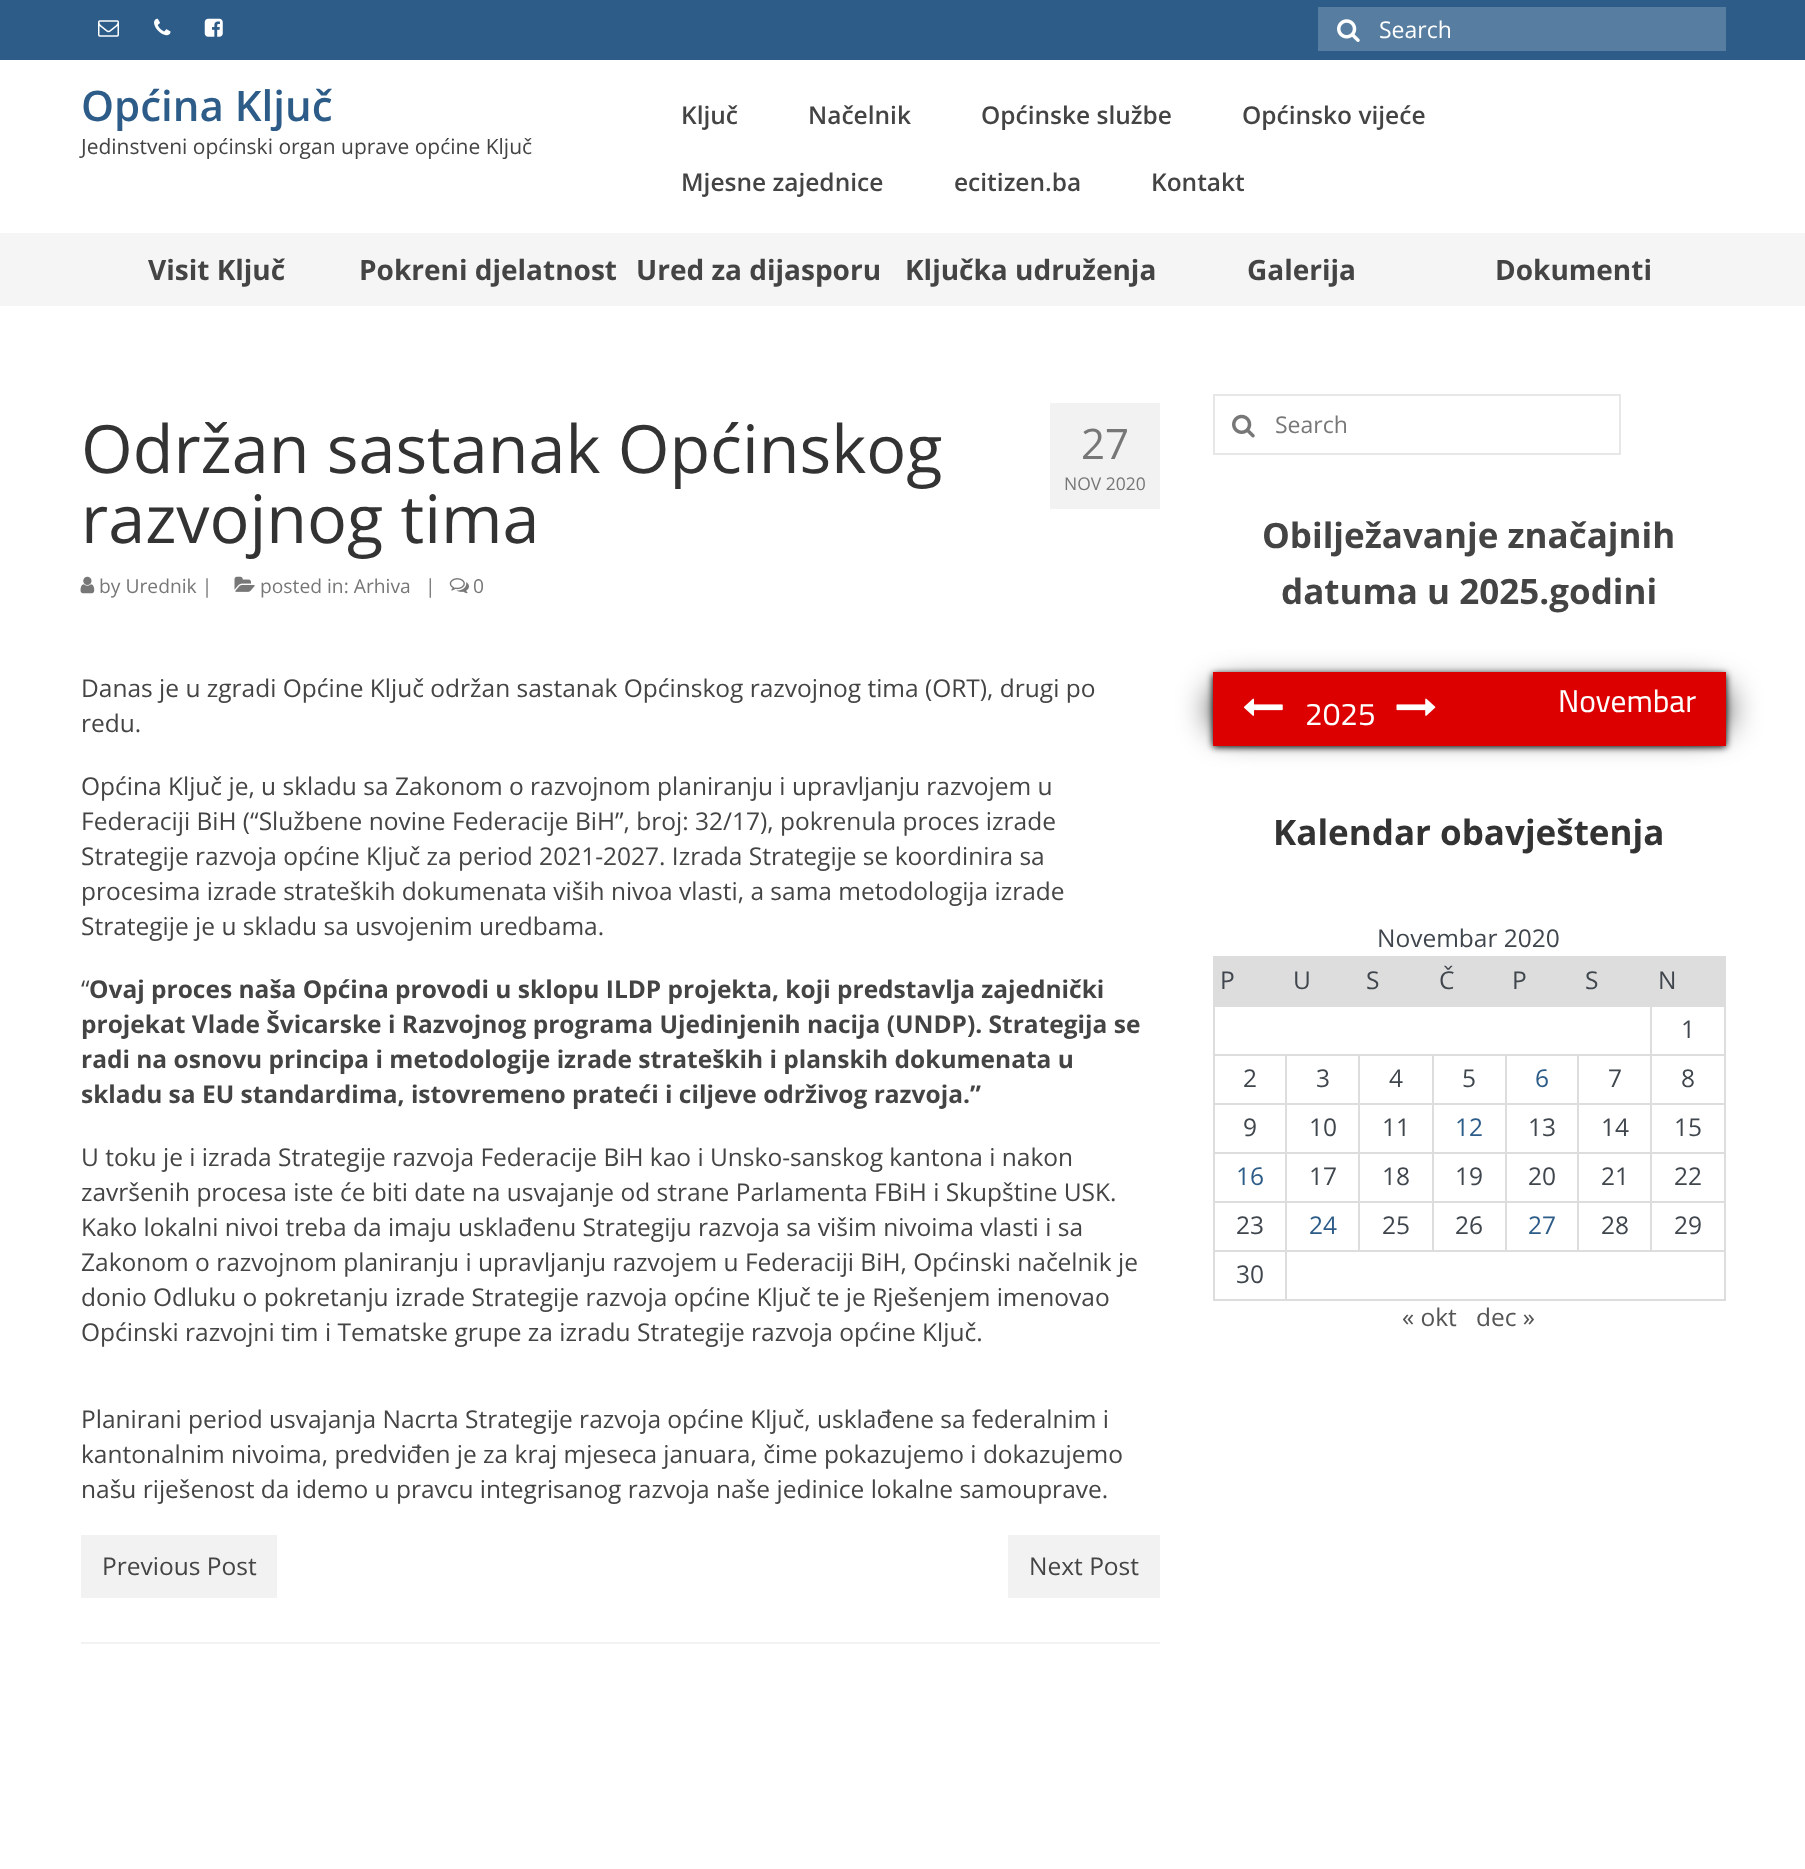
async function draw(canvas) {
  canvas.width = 1805
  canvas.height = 1869
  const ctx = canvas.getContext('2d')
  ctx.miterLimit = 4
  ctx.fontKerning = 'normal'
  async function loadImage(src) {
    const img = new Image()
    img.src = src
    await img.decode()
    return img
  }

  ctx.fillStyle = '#fff'
  ctx.fillRect(0, 0, 1805, 1869)
  ctx.fillStyle = '#2d5c88'
  ctx.fillRect(0, 0, 1805, 60)
  ctx.drawImage(await loadImage('image0.png'), 98, 20, 21, 17)
  ctx.drawImage(await loadImage('image1.png'), 154, 18, 17, 18)
  ctx.drawImage(await loadImage('image2.png'), 204, 18, 19, 19)
  ctx.fillStyle = '#577da0'
  ctx.fillRect(1318, 7, 408, 44)
  ctx.drawImage(await loadImage('image3.png'), 1337, 19, 23, 23)
  ctx.font = '23px Open Sans'
  ctx.fillStyle = '#fff'
  ctx.fillText('Search', 1379, 38)
  ctx.font = '600 42px Open Sans'
  ctx.fillStyle = '#2d5c88'
  ctx.fillText('Općina Ključ', 81, 121)
  ctx.font = '21px Open Sans'
  ctx.fillStyle = '#444'
  ctx.fillText('Jedinstveni općinski organ uprave općine Ključ', 81, 154)
  ctx.font = '600 24.5px Open Sans'
  ctx.fillText('Ključ', 681, 124)
  ctx.fillText('Načelnik', 808, 124)
  ctx.fillText('Općinske službe', 981, 124)
  ctx.fillText('Općinsko vijeće', 1242, 124)
  ctx.fillText('Mjesne zajednice', 681, 191)
  ctx.fillText('ecitizen.ba', 954, 191)
  ctx.fillText('Kontakt', 1151, 191)
  ctx.fillStyle = '#f5f5f5'
  ctx.fillRect(0, 233, 1805, 73)
  ctx.font = 'bold 28px Open Sans'
  ctx.fillStyle = '#444'
  ctx.fillText('Visit Ključ', 148, 280)
  ctx.fillText('Pokreni djelatnost', 359, 280)
  ctx.fillText('Ured za dijasporu', 636, 280)
  ctx.fillText('Ključka udruženja', 905, 280)
  ctx.fillText('Galerija', 1247, 280)
  ctx.fillText('Dokumenti', 1495, 280)
  ctx.font = '66.5px Open Sans'
  ctx.fillStyle = '#333'
  ctx.fillText('Održan sastanak Općinskog', 81, 473)
  ctx.fillText('razvojnog tima', 81, 543)
  ctx.drawImage(await loadImage('image4.png'), 80, 576, 15, 18)
  ctx.font = '19.25px Open Sans'
  ctx.fillStyle = '#777'
  ctx.fillText('by Urednik |', 99, 593)
  ctx.drawImage(await loadImage('image5.png'), 234, 576, 21, 16)
  ctx.fillText('posted in: Arhiva', 260, 593)
  ctx.fillText('|', 425, 593)
  ctx.drawImage(await loadImage('image6.png'), 449, 578, 20, 16)
  ctx.fillText('0', 473, 593)
  ctx.fillStyle = '#f2f2f2'
  ctx.fillRect(1050, 403, 110, 106)
  ctx.font = '42px Open Sans'
  ctx.fillStyle = '#777'
  ctx.fillText('27', 1081, 459)
  ctx.font = '17.5px Open Sans'
  ctx.fillText('NOV 2020', 1064, 490)
  ctx.font = '24.5px Open Sans'
  ctx.fillStyle = '#444'
  ctx.fillText('Danas je u zgradi Općine Ključ održan sastanak Općinskog razvojnog tima (ORT), drugi po', 81, 697)
  ctx.fillText('redu.', 81, 732)
  ctx.fillText('Općina Ključ je, u skladu sa Zakonom o razvojnom planiranju i upravljanju razvojem u', 81, 795)
  ctx.fillText('Federaciji BiH (“Službene novine Federacije BiH”, broj: 32/17), pokrenula proces izrade', 81, 830)
  ctx.fillText('Strategije razvoja općine Ključ za period 2021-2027. Izrada Strategije se koordinira sa', 81, 865)
  ctx.fillText('procesima izrade strateških dokumenata viših nivoa vlasti, a sama metodologija izrade', 81, 900)
  ctx.fillText('Strategije je u skladu sa usvojenim uredbama.', 81, 935)
  ctx.fillText('“', 81, 998)
  ctx.font = 'bold 24.5px Open Sans'
  ctx.fillText('Ovaj proces naša Općina provodi u sklopu ILDP projekta, koji predstavlja zajednički', 89, 998)
  ctx.fillText('projekat Vlade Švicarske i Razvojnog programa Ujedinjenih nacija (UNDP). Strategija se', 81, 1033)
  ctx.fillText('radi na osnovu principa i metodologije izrade strateških i planskih dokumenata u', 81, 1068)
  ctx.fillText('skladu sa EU standardima, istovremeno prateći i ciljeve održivog razvoja.”', 81, 1103)
  ctx.font = '24.5px Open Sans'
  ctx.fillText('U toku je i izrada Strategije razvoja Federacije BiH kao i Unsko-sanskog kantona i nakon', 81, 1166)
  ctx.fillText('završenih procesa iste će biti date na usvajanje od strane Parlamenta FBiH i Skupštine USK.', 81, 1201)
  ctx.fillText('Kako lokalni nivoi treba da imaju usklađenu Strategiju razvoja sa višim nivoima vlasti i sa', 81, 1236)
  ctx.fillText('Zakonom o razvojnom planiranju i upravljanju razvojem u Federaciji BiH, Općinski načelnik je', 81, 1271)
  ctx.fillText('donio Odluku o pokretanju izrade Strategije razvoja općine Ključ te je Rješenjem imenovao', 81, 1306)
  ctx.fillText('Općinski razvojni tim i Tematske grupe za izradu Strategije razvoja općine Ključ.', 81, 1341)
  ctx.fillText('Planirani period usvajanja Nacrta Strategije razvoja općine Ključ, usklađene sa federalnim i', 81, 1428)
  ctx.fillText('kantonalnim nivoima, predviđen je za kraj mjeseca januara, čime pokazujemo i dokazujemo', 81, 1463)
  ctx.fillText('našu riješenost da idemo u pravcu integrisanog razvoja naše jedinice lokalne samouprave.', 81, 1498)
  ctx.fillStyle = '#f2f2f2'
  ctx.fillRect(81, 1642, 1079, 2)
  ctx.fillRect(81, 1535, 196, 63)
  ctx.fillStyle = '#444'
  ctx.fillText('Previous Post', 102, 1575)
  ctx.fillStyle = '#f2f2f2'
  ctx.fillRect(1008, 1535, 152, 63)
  ctx.fillStyle = '#444'
  ctx.fillText('Next Post', 1029, 1575)
  ctx.strokeStyle = '#e7e7e7'
  ctx.lineWidth = 2
  ctx.strokeRect(1214, 395, 406, 59)
  ctx.drawImage(await loadImage('image7.png'), 1232, 414, 23, 24)
  ctx.font = '23px Open Sans'
  ctx.fillStyle = '#777'
  ctx.fillText('Search', 1275, 433)
  ctx.font = 'bold 35px Open Sans'
  ctx.fillStyle = '#444'
  ctx.fillText('Obilježavanje značajnih', 1262, 548)
  ctx.fillText('datuma u 2025.godini', 1281, 604)
  ctx.fillStyle = '#000'
  ctx.filter = 'blur(3.5px)'
  ctx.beginPath()
  ctx.rect(1213, 674, 513, 73)
  ctx.fill()
  ctx.filter = 'none'
  ctx.filter = 'blur(17.5px)'
  ctx.beginPath()
  ctx.roundRect(1213, 690, 513, 38, 18)
  ctx.fill()
  ctx.filter = 'none'
  ctx.fillStyle = '#d00'
  ctx.fillRect(1213, 672, 513, 74)
  ctx.drawImage(await loadImage('image8.png'), 1244, 698, 39, 18)
  ctx.font = '31.5px Cairo'
  ctx.fillStyle = '#fff'
  ctx.fillText('2025', 1305, 725)
  ctx.drawImage(await loadImage('image9.png'), 1396, 698, 40, 18)
  ctx.fillText('Novembar', 1558, 712)
  ctx.font = 'bold 35px Open Sans'
  ctx.fillStyle = '#333'
  ctx.fillText('Kalendar obavještenja', 1273, 845)
  ctx.font = '24.5px Open Sans'
  ctx.fillStyle = '#40464d'
  ctx.fillText('Novembar 2020', 1377, 947)
  ctx.fillStyle = '#ddd'
  ctx.fillRect(1213, 956, 439, 49)
  ctx.fillStyle = '#40464d'
  ctx.fillText('P', 1220, 989)
  ctx.fillText('U', 1293, 989)
  ctx.fillText('S', 1366, 989)
  ctx.fillText('Č', 1439, 989)
  ctx.fillText('P', 1512, 989)
  ctx.fillText('S', 1585, 989)
  ctx.fillStyle = '#ddd'
  ctx.fillRect(1652, 958, 72, 47)
  ctx.fillRect(1650, 956, 76, 2)
  ctx.fillRect(1650, 1005, 76, 2)
  ctx.fillRect(1650, 1054, 76, 2)
  ctx.fillRect(1650, 1103, 76, 2)
  ctx.fillRect(1650, 1152, 76, 2)
  ctx.fillRect(1650, 1201, 76, 2)
  ctx.fillRect(1285, 1250, 441, 2)
  ctx.fillRect(1724, 1250, 2, 50)
  ctx.fillRect(1724, 1201, 2, 50)
  ctx.fillRect(1724, 1152, 2, 50)
  ctx.fillRect(1724, 1103, 2, 50)
  ctx.fillRect(1724, 1054, 2, 50)
  ctx.fillRect(1724, 1005, 2, 50)
  ctx.fillRect(1724, 956, 2, 50)
  ctx.fillStyle = '#40464d'
  ctx.fillText('N', 1658, 989)
  ctx.fillStyle = '#ddd'
  ctx.fillRect(1650, 1201, 2, 50)
  ctx.fillRect(1577, 1201, 75, 2)
  ctx.fillRect(1650, 1152, 2, 50)
  ctx.fillRect(1577, 1152, 75, 2)
  ctx.fillRect(1650, 1103, 2, 50)
  ctx.fillRect(1577, 1103, 75, 2)
  ctx.fillRect(1650, 1054, 2, 50)
  ctx.fillRect(1577, 1054, 75, 2)
  ctx.fillRect(1650, 1005, 2, 50)
  ctx.fillRect(1213, 1005, 439, 2)
  ctx.fillRect(1577, 1201, 2, 50)
  ctx.fillRect(1505, 1201, 74, 2)
  ctx.fillRect(1577, 1152, 2, 50)
  ctx.fillRect(1505, 1152, 74, 2)
  ctx.fillRect(1577, 1103, 2, 50)
  ctx.fillRect(1505, 1103, 74, 2)
  ctx.fillRect(1577, 1054, 2, 50)
  ctx.fillRect(1505, 1054, 74, 2)
  ctx.fillRect(1505, 1201, 2, 50)
  ctx.fillRect(1432, 1201, 75, 2)
  ctx.fillRect(1505, 1152, 2, 50)
  ctx.fillRect(1432, 1152, 75, 2)
  ctx.fillRect(1505, 1103, 2, 50)
  ctx.fillRect(1432, 1103, 75, 2)
  ctx.fillRect(1505, 1054, 2, 50)
  ctx.fillRect(1432, 1054, 75, 2)
  ctx.fillRect(1432, 1201, 2, 50)
  ctx.fillRect(1358, 1201, 75, 2)
  ctx.fillRect(1432, 1152, 2, 50)
  ctx.fillRect(1358, 1152, 75, 2)
  ctx.fillRect(1432, 1103, 2, 50)
  ctx.fillRect(1358, 1103, 75, 2)
  ctx.fillRect(1432, 1054, 2, 50)
  ctx.fillRect(1358, 1054, 75, 2)
  ctx.fillRect(1358, 1201, 2, 50)
  ctx.fillRect(1285, 1201, 75, 2)
  ctx.fillRect(1358, 1152, 2, 50)
  ctx.fillRect(1285, 1152, 75, 2)
  ctx.fillRect(1358, 1103, 2, 50)
  ctx.fillRect(1285, 1103, 75, 2)
  ctx.fillRect(1358, 1054, 2, 50)
  ctx.fillRect(1285, 1054, 75, 2)
  ctx.fillRect(1285, 1299, 441, 2)
  ctx.fillRect(1285, 1250, 2, 50)
  ctx.fillRect(1213, 1250, 73, 2)
  ctx.fillRect(1285, 1201, 2, 50)
  ctx.fillRect(1213, 1201, 73, 2)
  ctx.fillRect(1285, 1152, 2, 50)
  ctx.fillRect(1213, 1152, 73, 2)
  ctx.fillRect(1285, 1103, 2, 50)
  ctx.fillRect(1213, 1103, 73, 2)
  ctx.fillRect(1285, 1054, 2, 50)
  ctx.fillRect(1213, 1054, 73, 2)
  ctx.fillRect(1213, 1299, 73, 2)
  ctx.fillRect(1213, 1250, 2, 50)
  ctx.fillRect(1213, 1201, 2, 50)
  ctx.fillRect(1213, 1152, 2, 50)
  ctx.fillRect(1213, 1103, 2, 50)
  ctx.fillRect(1213, 1054, 2, 50)
  ctx.fillRect(1213, 1005, 2, 50)
  ctx.fillStyle = '#40464d'
  ctx.fillText('1', 1681, 1038)
  ctx.fillText('2', 1243, 1087)
  ctx.fillText('3', 1316, 1087)
  ctx.fillText('4', 1389, 1087)
  ctx.fillText('5', 1462, 1087)
  ctx.fillStyle = '#2d5c88'
  ctx.fillText('6', 1535, 1087)
  ctx.fillStyle = '#40464d'
  ctx.fillText('7', 1608, 1087)
  ctx.fillText('8', 1681, 1087)
  ctx.fillText('9', 1243, 1136)
  ctx.fillText('10', 1309, 1136)
  ctx.fillText('11', 1382, 1136)
  ctx.fillStyle = '#2d5c88'
  ctx.fillText('12', 1455, 1136)
  ctx.fillStyle = '#40464d'
  ctx.fillText('13', 1528, 1136)
  ctx.fillText('14', 1601, 1136)
  ctx.fillText('15', 1674, 1136)
  ctx.fillStyle = '#2d5c88'
  ctx.fillText('16', 1236, 1185)
  ctx.fillStyle = '#40464d'
  ctx.fillText('17', 1309, 1185)
  ctx.fillText('18', 1382, 1185)
  ctx.fillText('19', 1455, 1185)
  ctx.fillText('20', 1528, 1185)
  ctx.fillText('21', 1601, 1185)
  ctx.fillText('22', 1674, 1185)
  ctx.fillText('23', 1236, 1234)
  ctx.fillStyle = '#2d5c88'
  ctx.fillText('24', 1309, 1234)
  ctx.fillStyle = '#40464d'
  ctx.fillText('25', 1382, 1234)
  ctx.fillText('26', 1455, 1234)
  ctx.fillStyle = '#2d5c88'
  ctx.fillText('27', 1528, 1234)
  ctx.fillStyle = '#40464d'
  ctx.fillText('28', 1601, 1234)
  ctx.fillText('29', 1674, 1234)
  ctx.fillText('30', 1236, 1283)
  ctx.fillStyle = '#555'
  ctx.fillText('« okt', 1402, 1326)
  ctx.fillText('dec »', 1476, 1326)
}

draw(document.querySelector('canvas'))
